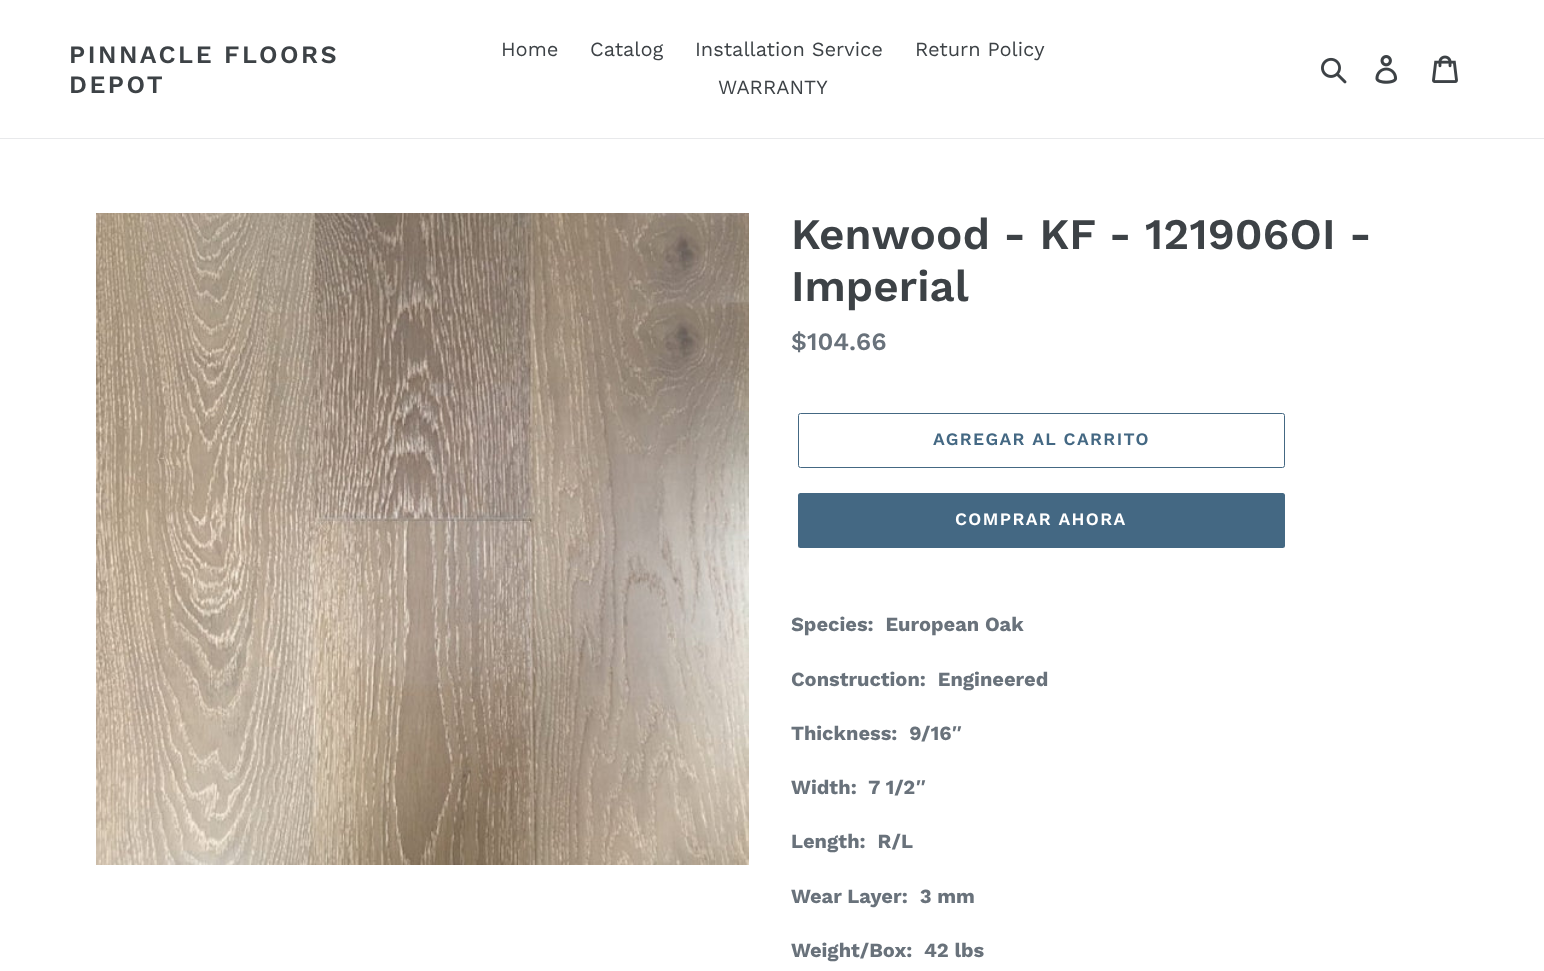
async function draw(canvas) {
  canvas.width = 1544
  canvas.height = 971
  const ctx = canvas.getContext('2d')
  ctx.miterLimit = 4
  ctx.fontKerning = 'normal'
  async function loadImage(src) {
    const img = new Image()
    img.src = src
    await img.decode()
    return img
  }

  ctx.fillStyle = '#fff'
  ctx.fillRect(0, 0, 1544, 971)
  ctx.fillStyle = '#e8e9eb'
  ctx.fillRect(0, 138, 1544, 1)
  ctx.letterSpacing = '2.5px'
  ctx.font = '600 25px Work Sans'
  ctx.fillStyle = '#3d4246'
  ctx.fillText('PINNACLE FLOORS', 69, 63)
  ctx.fillText('DEPOT', 69, 93)
  ctx.letterSpacing = '0px'
  ctx.font = '20px Work Sans'
  ctx.fillText('Home', 501, 56)
  ctx.fillText('Catalog', 590, 56)
  ctx.fillText('Installation Service', 695, 56)
  ctx.fillText('Return Policy', 915, 56)
  ctx.fillText('WARRANTY', 718, 94)
  ctx.drawImage(await loadImage('image0.png'), 1321, 57, 26, 27)
  ctx.drawImage(await loadImage('image1.png'), 1375, 55, 23, 29)
  ctx.drawImage(await loadImage('image2.png'), 1432, 55, 26, 28)
  ctx.drawImage(await loadImage('image3.png'), 96, 213, 653, 652)
  ctx.font = '600 43.75px Work Sans'
  ctx.fillText('Kenwood - KF - 121906OI -', 791, 249)
  ctx.fillText('Imperial', 791, 301)
  ctx.font = '600 25px Work Sans'
  ctx.fillStyle = '#69727b'
  ctx.fillText('$104.66', 791, 350)
  ctx.beginPath()
  ctx.roundRect(798.5, 413.5, 486, 54, 2)
  ctx.strokeStyle = '#446883'
  ctx.stroke()
  ctx.letterSpacing = '1.4px'
  ctx.font = '600 17.5px Work Sans'
  ctx.fillStyle = '#446883'
  ctx.fillText('AGREGAR AL CARRITO', 933, 445)
  ctx.beginPath()
  ctx.roundRect(798, 493, 487, 55, 2.5)
  ctx.fill()
  ctx.fillStyle = '#fff'
  ctx.fillText('COMPRAR AHORA', 955, 525)
  ctx.letterSpacing = '0px'
  ctx.font = 'bold 20px Work Sans'
  ctx.fillStyle = '#69727b'
  ctx.fillText('Species:  European Oak', 791, 631)
  ctx.fillText('Construction:  Engineered', 791, 686)
  ctx.fillText('Thickness:  9/16', 791, 740)
  ctx.font = 'bold 20px Liberation Sans'
  ctx.fillText('″', 952, 740)
  ctx.font = 'bold 20px Work Sans'
  ctx.fillText('Width:  7 1/2', 791, 794)
  ctx.font = 'bold 20px Liberation Sans'
  ctx.fillText('″', 916, 794)
  ctx.font = 'bold 20px Work Sans'
  ctx.fillText('Length:  R/L', 791, 848)
  ctx.fillText('Wear Layer:  3 mm', 791, 903)
  ctx.fillText('Weight/Box:  42 lbs', 791, 957)
}

draw(document.querySelector('canvas'))
